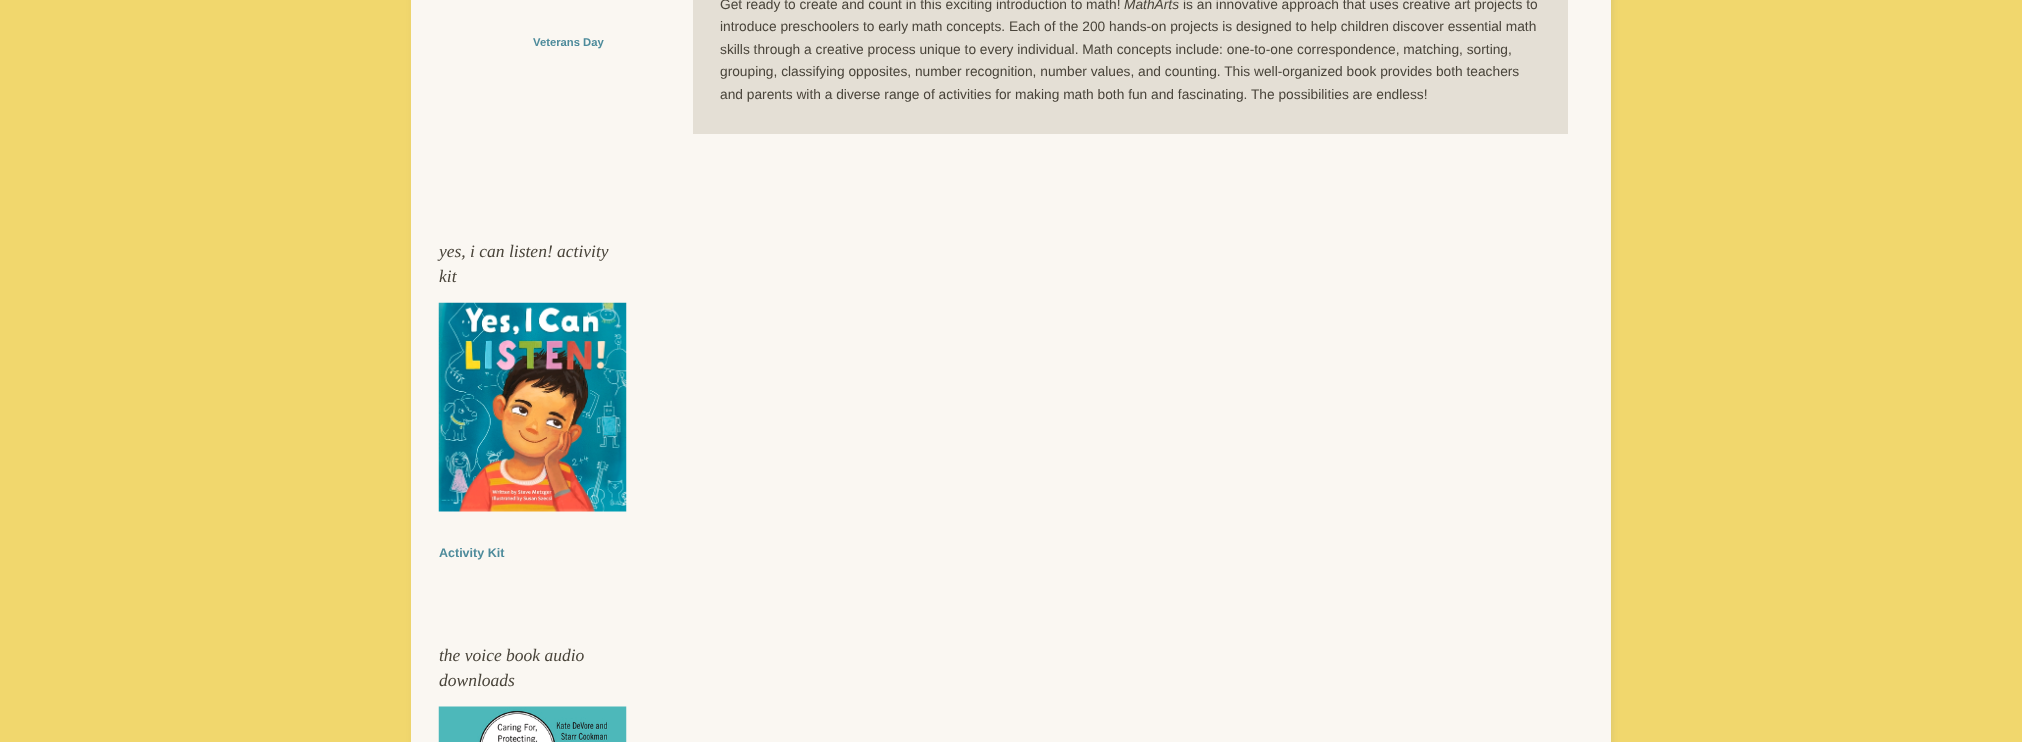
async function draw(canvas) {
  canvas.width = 2022
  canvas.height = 742
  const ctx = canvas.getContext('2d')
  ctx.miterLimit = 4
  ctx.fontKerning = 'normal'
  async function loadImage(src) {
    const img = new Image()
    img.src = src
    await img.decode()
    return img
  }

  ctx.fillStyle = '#f1d76d'
  ctx.fillRect(0, 0, 2022, 742)
  ctx.fillStyle = '#7a7a7a26'
  ctx.filter = 'blur(3px)'
  ctx.beginPath()
  ctx.rect(413, -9, 1200, 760)
  ctx.fill()
  ctx.filter = 'none'
  ctx.fillStyle = '#faf7f2'
  ctx.fillRect(411, 0, 1200, 742)
  ctx.font = 'bold 11.25px Liberation Sans'
  ctx.fillStyle = '#4d8b9b'
  ctx.fillText('Veterans Day', 533, 46)
  ctx.font = 'italic 17.5px Liberation Serif'
  ctx.fillStyle = '#49443a'
  ctx.fillText('yes, i can listen! activity', 439, 257)
  ctx.fillText('kit', 439, 282)
  ctx.drawImage(await loadImage('image0.png'), 438, 302, 189, 210)
  ctx.font = 'bold 12.5px Liberation Sans'
  ctx.fillStyle = '#4d8b9b'
  ctx.fillText('Activity Kit', 439, 557)
  ctx.font = 'italic 17.5px Liberation Serif'
  ctx.fillStyle = '#49443a'
  ctx.fillText('the voice book audio', 439, 661)
  ctx.fillText('downloads', 439, 686)
  ctx.drawImage(await loadImage('image1.png'), 438, 706, 189, 36)
  ctx.fillStyle = '#e4dfd5'
  ctx.fillRect(693, 0, 875, 134)
  ctx.font = '13.75px Liberation Sans'
  ctx.fillStyle = '#49443a'
  ctx.fillText('Get ready to create and count in this exciting introduction to math!', 720, 9)
  ctx.font = 'italic 13.75px Liberation Sans'
  ctx.fillText('MathArts', 1124, 9)
  ctx.font = '13.75px Liberation Sans'
  ctx.fillText('is an innovative approach that uses creative art projects to', 1183, 9)
  ctx.fillText('introduce preschoolers to early math concepts. Each of the 200 hands-on projects is designed to help children discover essential math', 720, 31)
  ctx.fillText('skills through a creative process unique to every individual. Math concepts include: one-to-one correspondence, matching, sorting,', 720, 54)
  ctx.fillText('grouping, classifying opposites, number recognition, number values, and counting. This well-organized book provides both teachers', 720, 76)
  ctx.fillText('and parents with a diverse range of activities for making math both fun and fascinating. The possibilities are endless!', 720, 99)
}

draw(document.querySelector('canvas'))
